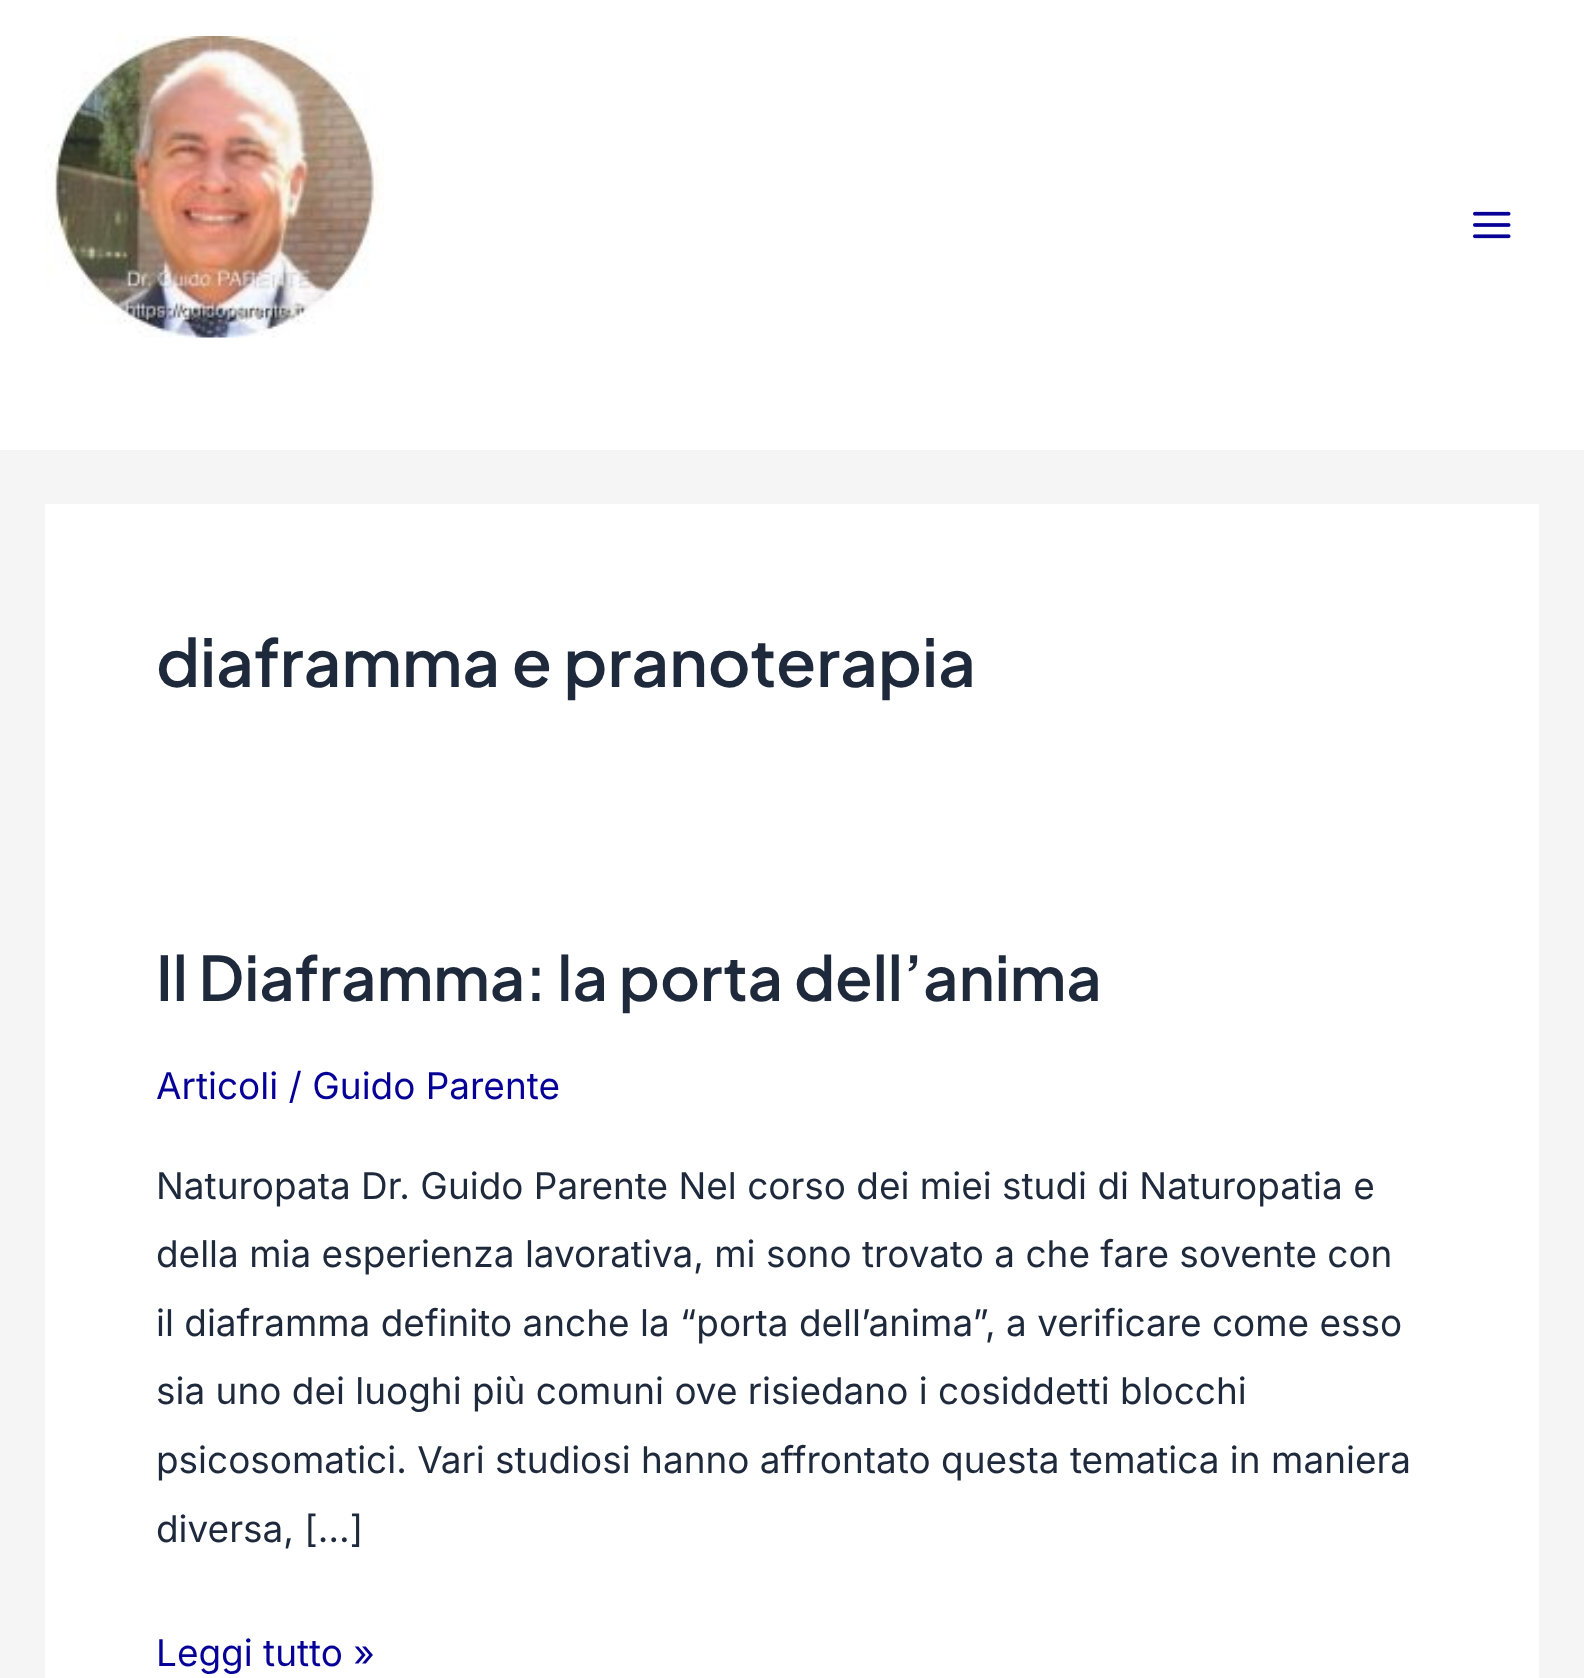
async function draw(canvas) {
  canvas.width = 1584
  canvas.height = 1678
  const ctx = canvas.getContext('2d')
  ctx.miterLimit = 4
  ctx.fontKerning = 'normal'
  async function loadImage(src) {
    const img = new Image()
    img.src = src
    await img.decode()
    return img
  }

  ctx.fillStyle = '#f5f5f5'
  ctx.fillRect(0, 0, 1584, 1678)
  ctx.fillStyle = '#fff'
  ctx.fillRect(0, 0, 1584, 450)
  ctx.drawImage(await loadImage('image0.png'), 45, 36, 339, 302)
  ctx.drawImage(await loadImage('image1.png'), 1473, 211, 38, 28)
  ctx.fillRect(45, 504, 1494, 1174)
  ctx.font = '600 65.7px Plus Jakarta Sans'
  ctx.fillStyle = '#1e293b'
  ctx.fillText('diaframma e pranoterapia', 156, 687)
  ctx.font = '600 61.5px Plus Jakarta Sans'
  ctx.fillText('Il Diaframma: la porta dell’anima', 156, 1001)
  ctx.font = '36.95px Inter'
  ctx.fillStyle = '#060097'
  ctx.fillText('Articoli / Guido Parente', 156, 1099)
  ctx.fillStyle = '#1e293b'
  ctx.fillText('Naturopata Dr. Guido Parente Nel corso dei miei studi di Naturopatia e', 156, 1199)
  ctx.fillText('della mia esperienza lavorativa, mi sono trovato a che fare sovente con', 156, 1267)
  ctx.fillText('il diaframma definito anche la “porta dell’anima”, a verificare come esso', 156, 1336)
  ctx.fillText('sia uno dei luoghi più comuni ove risiedano i cosiddetti blocchi', 156, 1404)
  ctx.fillText('psicosomatici. Vari studiosi hanno affrontato questa tematica in maniera', 156, 1473)
  ctx.fillText('diversa, […]', 156, 1542)
  ctx.fillStyle = '#060097'
  ctx.fillText('Leggi tutto »', 156, 1666)
}

draw(document.querySelector('canvas'))
